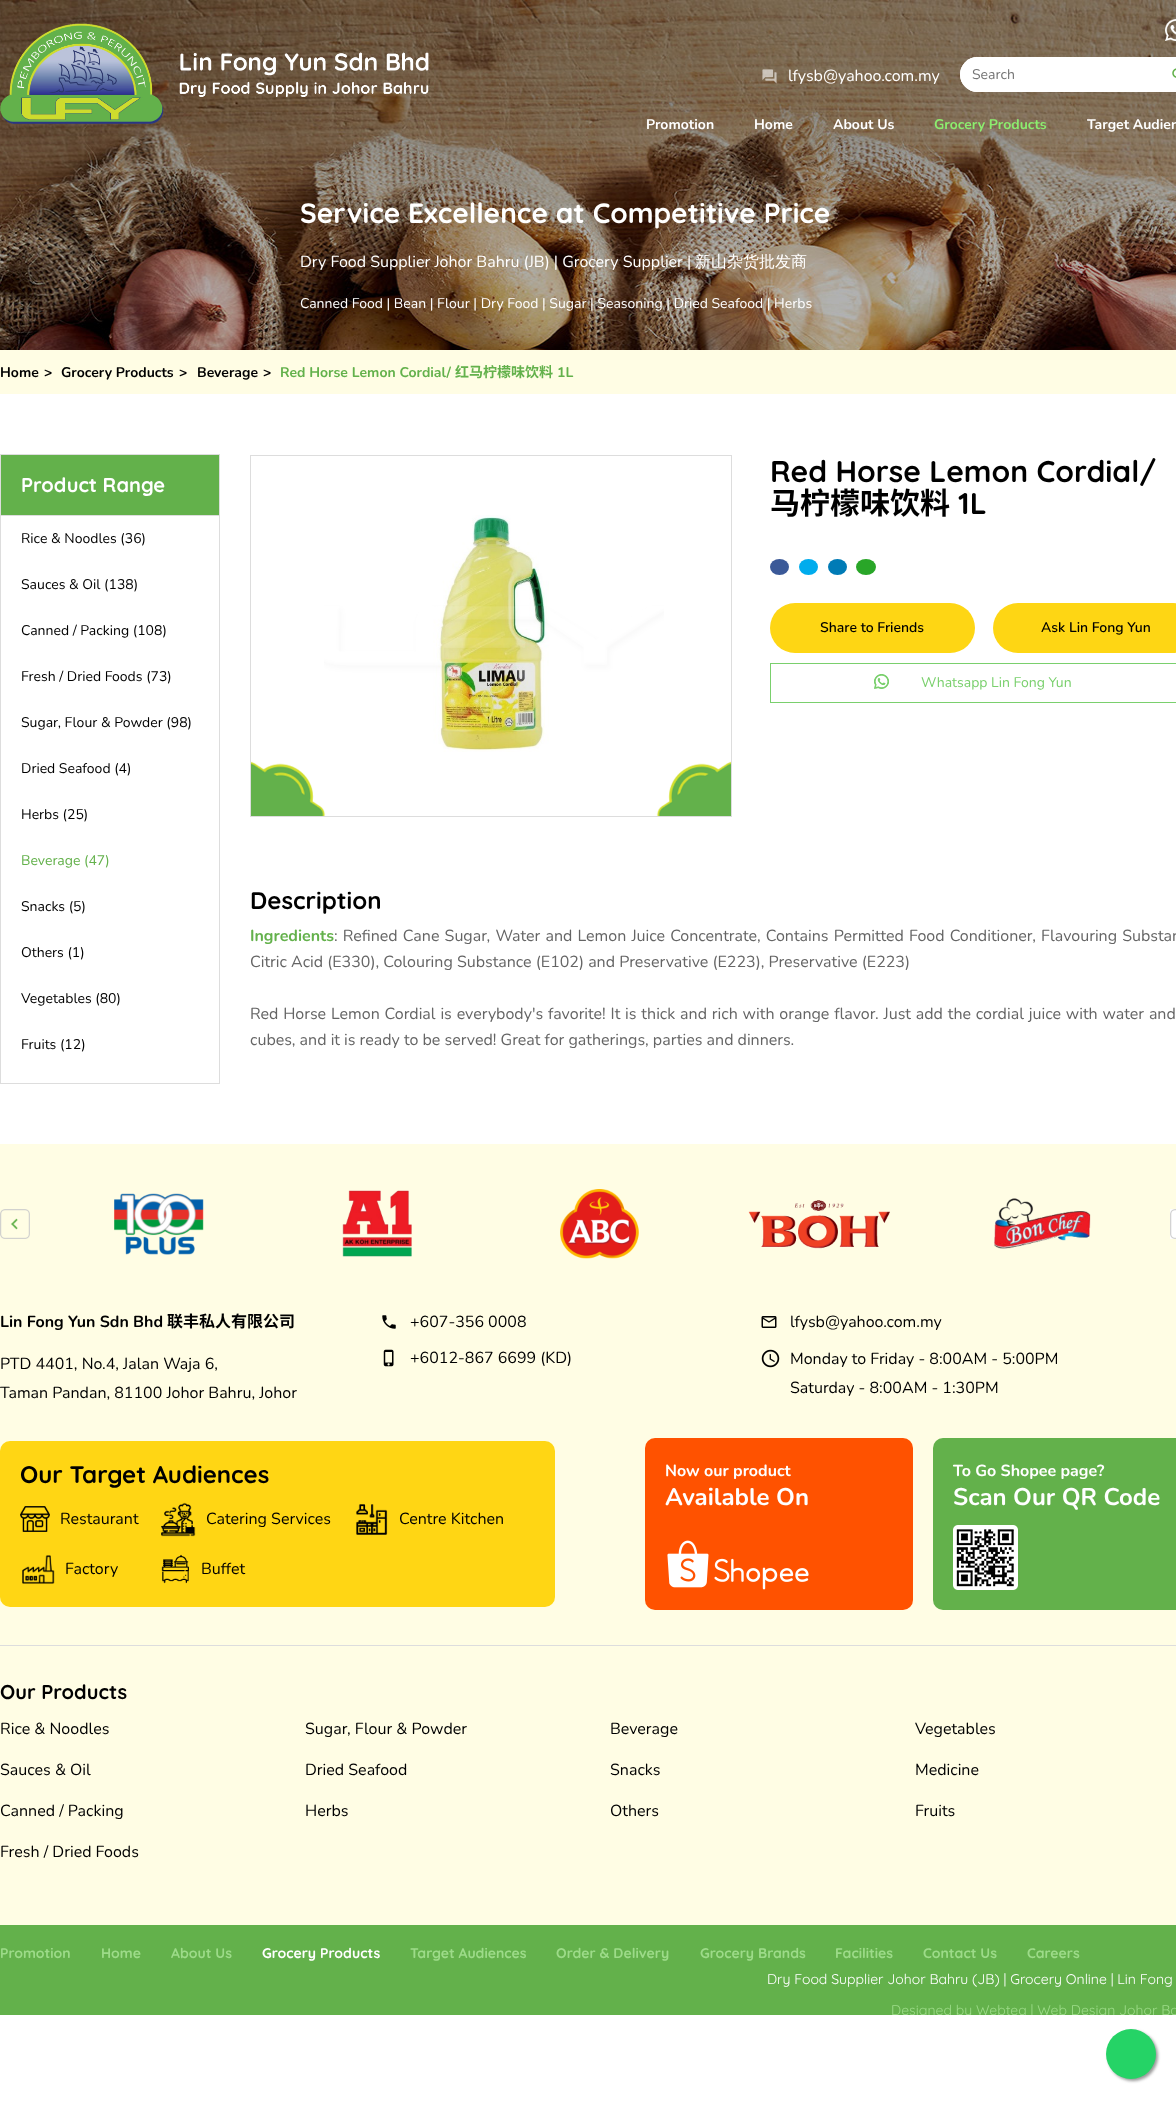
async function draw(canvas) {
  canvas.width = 1176
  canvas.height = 2119
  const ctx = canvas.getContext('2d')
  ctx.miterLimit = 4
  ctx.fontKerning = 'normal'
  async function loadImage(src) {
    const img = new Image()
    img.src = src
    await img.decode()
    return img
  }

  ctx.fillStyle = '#fff'
  ctx.fillRect(0, 0, 1176, 2119)
  ctx.drawImage(await loadImage('image0.png'), 0, 0, 1176, 350)
  ctx.drawImage(await loadImage('image1.png'), 0, 23, 429, 101)
  ctx.drawImage(await loadImage('image2.png'), 1165, 19, 11, 22)
  ctx.drawImage(await loadImage('image3.png'), 762, 69, 15, 15)
  ctx.font = '16px Nunito'
  ctx.fillText('lfysb@yahoo.com.my', 788, 81)
  ctx.beginPath()
  ctx.roundRect(960, 57, 216, 35, [17.5, 0, 0, 17.5])
  ctx.fill()
  ctx.beginPath()
  ctx.roundRect(960, 57, 198, 35, [17.5, 0, 0, 17.5])
  ctx.fill()
  ctx.font = '14px Nunito'
  ctx.fillStyle = '#757575'
  ctx.fillText('Search', 972, 79)
  ctx.drawImage(await loadImage('image4.png'), 1172, 68, 4, 10)
  ctx.font = 'bold 14px Nunito'
  ctx.fillStyle = '#fff'
  ctx.fillText('Promotion', 646, 129)
  ctx.fillText('Home', 754, 129)
  ctx.fillText('About Us', 833, 129)
  ctx.fillStyle = '#8ced6f'
  ctx.fillText('Grocery Products', 934, 129)
  ctx.fillStyle = '#fff'
  ctx.fillText('Target Audien', 1087, 129)
  ctx.font = 'bold 28px Quicksand'
  ctx.fillText('Service Excellence at Competitive Price', 300, 223)
  ctx.font = '16px Nunito'
  ctx.fillText('Dry Food Supplier Johor Bahru (JB) | Grocery Supplier |', 300, 267)
  ctx.font = '500 16px WenQuanYi Zen Hei'
  ctx.fillText('新山杂货批发商', 695, 267)
  ctx.font = '14px Nunito'
  ctx.fillText('Canned Food | Bean | Flour | Dry Food | Sugar | Seasoning | Dried Seafood | Herbs', 300, 308)
  ctx.fillStyle = '#fffde4'
  ctx.fillRect(0, 350, 1176, 44)
  ctx.font = 'bold 14px Nunito'
  ctx.fillStyle = '#000'
  ctx.fillText('Home', 0, 377)
  ctx.fillText('>', 44, 377)
  ctx.fillText('Grocery Products', 61, 377)
  ctx.fillText('>', 179, 377)
  ctx.fillText('Beverage', 197, 377)
  ctx.fillText('>', 263, 377)
  ctx.fillStyle = '#63b14b'
  ctx.fillText('Red Horse Lemon Cordial/', 280, 377)
  ctx.font = 'bold 14px Noto Sans SC'
  ctx.fillText('红马柠檬味饮料', 455, 377)
  ctx.font = 'bold 14px Nunito'
  ctx.fillText('1L', 557, 377)
  ctx.beginPath()
  ctx.rect(0.5, 454.5, 219, 61)
  ctx.fill()
  ctx.strokeStyle = '#ddd'
  ctx.stroke()
  ctx.font = 'bold 20px Quicksand'
  ctx.fillStyle = '#fff'
  ctx.fillText('Product Range', 21, 492)
  ctx.fillStyle = '#ddd'
  ctx.fillRect(219, 516, 1, 568)
  ctx.fillRect(0, 1083, 220, 1)
  ctx.fillRect(0, 516, 1, 568)
  ctx.font = '14px Nunito'
  ctx.fillStyle = '#000'
  ctx.fillText('Rice & Noodles (36)', 21, 543)
  ctx.fillText('Sauces & Oil (138)', 21, 589)
  ctx.fillText('Canned / Packing (108)', 21, 635)
  ctx.fillText('Fresh / Dried Foods (73)', 21, 681)
  ctx.fillText('Sugar, Flour & Powder (98)', 21, 727)
  ctx.fillText('Dried Seafood (4)', 21, 773)
  ctx.fillText('Herbs (25)', 21, 819)
  ctx.fillStyle = '#63b14b'
  ctx.fillText('Beverage (47)', 21, 865)
  ctx.fillStyle = '#000'
  ctx.fillText('Snacks (5)', 21, 911)
  ctx.fillText('Others (1)', 21, 957)
  ctx.fillText('Vegetables (80)', 21, 1003)
  ctx.fillText('Fruits (12)', 21, 1049)
  ctx.strokeRect(250.5, 455.5, 481, 361)
  ctx.drawImage(await loadImage('image5.png'), 324, 515, 340, 237)
  ctx.drawImage(await loadImage('image6.png'), 251, 761, 480, 55)
  ctx.font = 'bold 30px Quicksand'
  ctx.fillText('Red Horse Lemon Cordial/', 770, 482)
  ctx.font = 'bold 30px Noto Sans SC'
  ctx.fillText('马柠檬味饮料', 770, 514)
  ctx.font = 'bold 30px Quicksand'
  ctx.fillText('1L', 958, 514)
  ctx.fillStyle = '#3b5998'
  ctx.beginPath()
  ctx.ellipse(779.5, 567, 9.5, 8, 0, 0, 2 * Math.PI)
  ctx.fill()
  ctx.fillStyle = '#00aced'
  ctx.beginPath()
  ctx.ellipse(808.5, 567, 9.5, 8, 0, 0, 2 * Math.PI)
  ctx.fill()
  ctx.fillStyle = '#007bb6'
  ctx.beginPath()
  ctx.ellipse(837.5, 567, 9.5, 8, 0, 0, 2 * Math.PI)
  ctx.fill()
  ctx.fillStyle = '#29a628'
  ctx.beginPath()
  ctx.ellipse(866, 567, 10, 8, 0, 0, 2 * Math.PI)
  ctx.fill()
  ctx.fillStyle = '#fed614'
  ctx.beginPath()
  ctx.roundRect(770, 603, 205, 50, 25)
  ctx.fill()
  ctx.font = '600 14px Nunito'
  ctx.fillStyle = '#000'
  ctx.fillText('Share to Friends', 820, 632)
  ctx.fillStyle = '#fed614'
  ctx.beginPath()
  ctx.roundRect(993, 603, 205, 50, 25)
  ctx.fill()
  ctx.fillStyle = '#000'
  ctx.fillText('Ask Lin Fong Yun', 1041, 632)
  ctx.drawImage(await loadImage('image7.png'), 874, 674, 15, 15)
  ctx.strokeStyle = '#7ad06d'
  ctx.strokeRect(770.5, 663.5, 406, 39)
  ctx.font = '14px Nunito'
  ctx.fillStyle = '#7ad06d'
  ctx.fillText('Whatsapp Lin Fong Yun', 921, 687)
  ctx.font = 'bold 24px Quicksand'
  ctx.fillStyle = '#000'
  ctx.fillText('Description', 250, 909)
  ctx.font = 'bold 16px Nunito'
  ctx.fillStyle = '#63b14b'
  ctx.fillText('Ingredients', 250, 941)
  ctx.wordSpacing = '1px'
  ctx.font = '16px Nunito'
  ctx.fillStyle = '#656565'
  ctx.fillText(': Refined Cane Sugar, Water and Lemon Juice Concentrate, Contains Permitted Food Conditioner, Flavouring Substan', 334, 941)
  ctx.wordSpacing = '0px'
  ctx.fillText('Citric Acid (E330), Colouring Substance (E102) and Preservative (E223), Preservative (E223)', 250, 967)
  ctx.wordSpacing = '0.7px'
  ctx.fillText('Red Horse Lemon Cordial is everybody\'s favorite! It is thick and rich with orange flavor. Just add the cordial juice with water and', 250, 1019)
  ctx.wordSpacing = '0px'
  ctx.fillText('cubes, and it is ready to be served! Great for gatherings, parties and dinners.', 250, 1045)
  ctx.fillStyle = '#fffde4'
  ctx.fillRect(0, 1144, 1176, 781)
  ctx.drawImage(await loadImage('image8.png'), 0, 1209, 30, 30)
  ctx.drawImage(await loadImage('image9.png'), 114, 1193, 90, 62)
  ctx.drawImage(await loadImage('image10.png'), 342, 1190, 70, 67)
  ctx.drawImage(await loadImage('image11.png'), 560, 1189, 79, 70)
  ctx.drawImage(await loadImage('image12.png'), 748, 1200, 142, 49)
  ctx.drawImage(await loadImage('image13.png'), 994, 1198, 97, 51)
  ctx.fillStyle = '#fff'
  ctx.fillRect(1170, 1209, 6, 30)
  ctx.drawImage(await loadImage('image14.png'), 1170, 1209, 6, 30)
  ctx.font = 'bold 16px Nunito'
  ctx.fillStyle = '#000'
  ctx.fillText('Lin Fong Yun Sdn Bhd', 0, 1327)
  ctx.font = 'bold 16px Noto Sans SC'
  ctx.fillText('联丰私人有限公司', 167, 1327)
  ctx.font = '16px Nunito'
  ctx.fillText('PTD 4401, No.4, Jalan Waja 6,', 0, 1369)
  ctx.fillText('Taman Pandan, 81100 Johor Bahru, Johor', 0, 1398)
  ctx.drawImage(await loadImage('image15.png'), 382, 1315, 14, 14)
  ctx.fillText('+607-356 0008', 410, 1327)
  ctx.drawImage(await loadImage('image16.png'), 383, 1349, 11, 18)
  ctx.fillText('+6012-867 6699 (KD)', 410, 1363)
  ctx.drawImage(await loadImage('image17.png'), 761, 1316, 16, 12)
  ctx.fillText('lfysb@yahoo.com.my', 790, 1327)
  ctx.drawImage(await loadImage('image18.png'), 761, 1349, 19, 19)
  ctx.fillText('Monday to Friday - 8:00AM - 5:00PM', 790, 1364)
  ctx.fillText('Saturday - 8:00AM - 1:30PM', 790, 1393)
  ctx.fillStyle = '#ffd614'
  ctx.beginPath()
  ctx.roundRect(0, 1441, 555, 166, 10)
  ctx.fill()
  ctx.font = 'bold 24px Quicksand'
  ctx.fillStyle = '#000'
  ctx.fillText('Our Target Audiences', 20, 1483)
  ctx.drawImage(await loadImage('image19.png'), 20, 1506, 30, 26)
  ctx.font = '16px Nunito'
  ctx.fillText('Restaurant', 60, 1524)
  ctx.drawImage(await loadImage('image20.png'), 161, 1502, 35, 35)
  ctx.fillText('Catering Services', 206, 1524)
  ctx.drawImage(await loadImage('image21.png'), 356, 1504, 32, 31)
  ctx.fillText('Centre Kitchen', 399, 1524)
  ctx.drawImage(await loadImage('image22.png'), 22, 1555, 33, 29)
  ctx.fillText('Factory', 65, 1574)
  ctx.drawImage(await loadImage('image23.png'), 161, 1554, 28, 30)
  ctx.fillText('Buffet', 201, 1574)
  ctx.fillStyle = '#ff5200'
  ctx.beginPath()
  ctx.roundRect(645, 1438, 268, 172, 10)
  ctx.fill()
  ctx.font = 'bold 16px Nunito'
  ctx.fillStyle = '#fff'
  ctx.fillText('Now our product', 665, 1476)
  ctx.font = 'bold 24px Nunito'
  ctx.fillText('Available On', 665, 1505)
  ctx.drawImage(await loadImage('image24.png'), 667, 1540, 142, 50)
  ctx.fillStyle = '#63b14b'
  ctx.beginPath()
  ctx.roundRect(933, 1438, 243, 172, [10, 0, 0, 10])
  ctx.fill()
  ctx.font = 'bold 16px Nunito'
  ctx.fillStyle = '#fff'
  ctx.fillText('To Go Shopee page?', 953, 1476)
  ctx.font = 'bold 24px Nunito'
  ctx.fillText('Scan Our QR Code', 953, 1505)
  ctx.drawImage(await loadImage('image25.png'), 953, 1525, 65, 65)
  ctx.fillStyle = '#ddd'
  ctx.fillRect(0, 1645, 1176, 1)
  ctx.font = 'bold 20px Quicksand'
  ctx.fillStyle = '#000'
  ctx.fillText('Our Products', 0, 1699)
  ctx.font = '16px Nunito'
  ctx.fillText('Rice & Noodles', 0, 1734)
  ctx.fillText('Sauces & Oil', 0, 1775)
  ctx.fillText('Canned / Packing', 0, 1816)
  ctx.fillText('Fresh / Dried Foods', 0, 1857)
  ctx.fillText('Sugar, Flour & Powder', 305, 1734)
  ctx.fillText('Dried Seafood', 305, 1775)
  ctx.fillText('Herbs', 305, 1816)
  ctx.fillText('Beverage', 610, 1734)
  ctx.fillText('Snacks', 610, 1775)
  ctx.fillText('Others', 610, 1816)
  ctx.fillText('Vegetables', 915, 1734)
  ctx.fillText('Medicine', 915, 1775)
  ctx.fillText('Fruits', 915, 1816)
  ctx.fillStyle = '#999'
  ctx.filter = 'blur(1.5px)'
  ctx.beginPath()
  ctx.roundRect(1108, 2031, 50, 50, 25)
  ctx.fill()
  ctx.filter = 'none'
  ctx.fillStyle = '#25d366'
  ctx.beginPath()
  ctx.arc(1131, 2054, 25, 0, 2 * Math.PI)
  ctx.fill()
  ctx.fillStyle = '#63b14b'
  ctx.fillRect(0, 1925, 1176, 90)
  ctx.font = 'bold 14px Quicksand'
  ctx.fillStyle = '#9ddb89'
  ctx.fillText('Promotion', 0, 1958)
  ctx.fillText('Home', 101, 1958)
  ctx.fillText('About Us', 171, 1958)
  ctx.fillStyle = '#fff'
  ctx.fillText('Grocery Products', 262, 1958)
  ctx.fillStyle = '#9ddb89'
  ctx.fillText('Target Audiences', 410, 1958)
  ctx.fillText('Order & Delivery', 556, 1958)
  ctx.fillText('Grocery Brands', 700, 1958)
  ctx.fillText('Facilities', 835, 1958)
  ctx.fillText('Contact Us', 923, 1958)
  ctx.fillText('Careers', 1027, 1958)
  ctx.font = '14px Quicksand'
  ctx.fillStyle = '#fff'
  ctx.fillText('Dry Food Supplier Johor Bahru (JB) | Grocery Online | Lin Fong', 767, 1984)
  ctx.save()
  ctx.beginPath()
  ctx.rect(891, 1997, 285, 18)
  ctx.clip()
  ctx.fillStyle = '#9ddb89'
  ctx.fillText('Designed by Webteq | Web Design Johor Ba', 891, 2015)
  ctx.restore()
}

draw(document.querySelector('canvas'))
